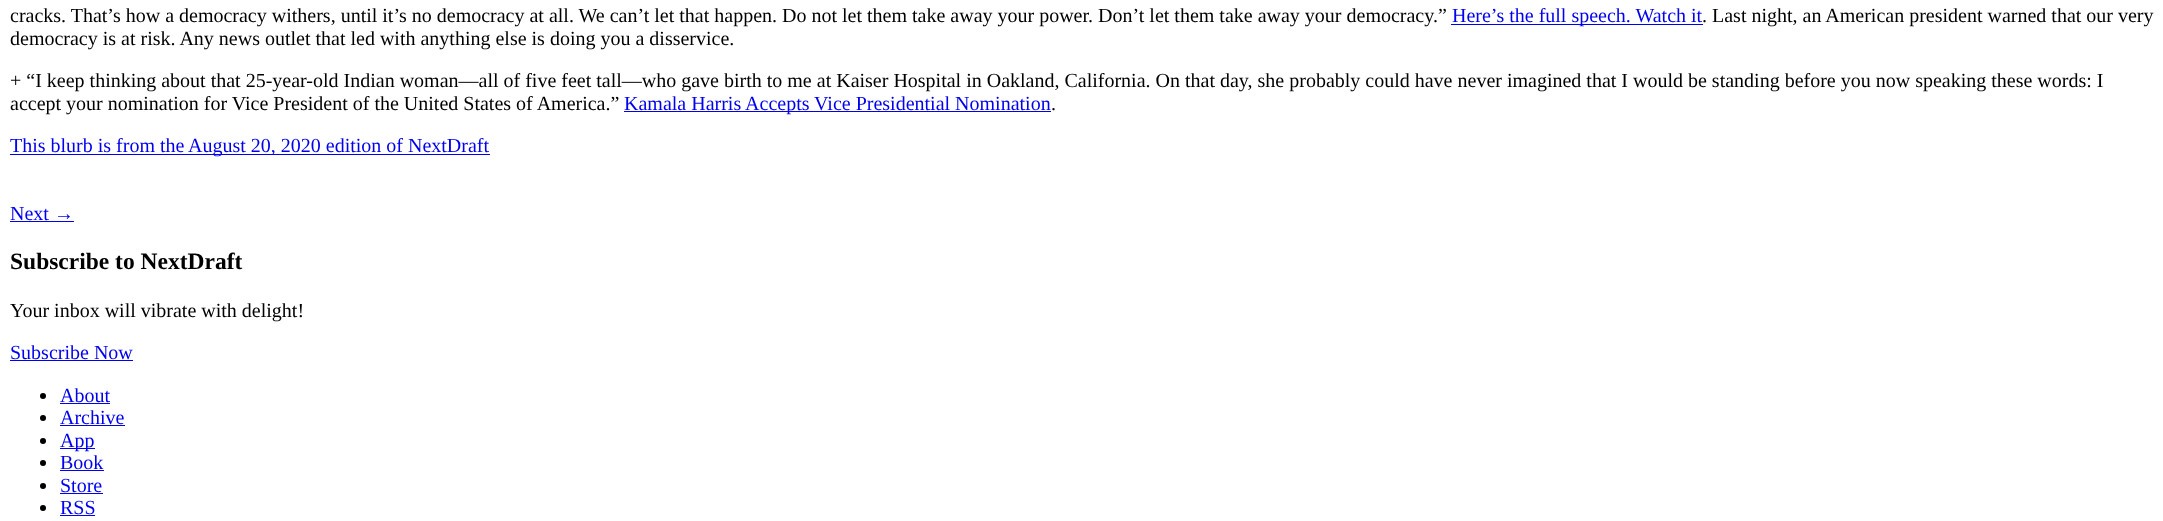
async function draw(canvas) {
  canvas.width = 2163
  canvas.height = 521
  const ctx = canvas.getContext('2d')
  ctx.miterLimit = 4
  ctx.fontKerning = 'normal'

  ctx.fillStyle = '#fff'
  ctx.fillRect(0, 0, 2163, 521)
  ctx.font = '20px Liberation Serif'
  ctx.fillStyle = '#000'
  ctx.fillText('cracks. That’s how a democracy withers, until it’s no democracy at all. We can’t let that happen. Do not let them take away your power. Don’t let them take away your democracy.”', 10, 22)
  ctx.fillStyle = '#00e'
  ctx.fillRect(1451, 24, 252, 1)
  ctx.fillText('Here’s the full speech. Watch it', 1452, 22)
  ctx.fillStyle = '#000'
  ctx.fillText('. Last night, an American president warned that our very', 1702, 22)
  ctx.fillText('democracy is at risk. Any news outlet that led with anything else is doing you a disservice.', 10, 45)
  ctx.fillText('+ “I keep thinking about that 25-year-old Indian woman—all of five feet tall—who gave birth to me at Kaiser Hospital in Oakland, California. On that day, she probably could have never imagined that I would be standing before you now speaking these words: I', 10, 87)
  ctx.fillText('accept your nomination for Vice President of the United States of America.”', 10, 110)
  ctx.fillStyle = '#00e'
  ctx.fillRect(624, 111, 427, 1)
  ctx.fillText('Kamala Harris Accepts Vice Presidential Nomination', 624, 110)
  ctx.fillStyle = '#000'
  ctx.fillText('.', 1051, 110)
  ctx.fillStyle = '#00e'
  ctx.fillText('This blurb is from the', 10, 152)
  ctx.fillRect(10, 154, 480, 1)
  ctx.fillText('August 20, 2020 edition of NextDraft', 188, 152)
  ctx.fillText('Next →', 10, 220)
  ctx.fillRect(10, 221, 64, 1)
  ctx.font = 'bold 23.5px Liberation Serif'
  ctx.fillStyle = '#000'
  ctx.fillText('Subscribe to NextDraft', 10, 269)
  ctx.font = '20px Liberation Serif'
  ctx.fillText('Your inbox will vibrate with delight!', 10, 317)
  ctx.fillStyle = '#00e'
  ctx.fillText('Subscribe Now', 10, 359)
  ctx.fillRect(10, 360, 123, 1)
  ctx.fillStyle = '#000'
  ctx.beginPath()
  ctx.arc(43, 396, 3, 0, 2 * Math.PI)
  ctx.fill()
  ctx.fillStyle = '#00e'
  ctx.fillText('About', 60, 402)
  ctx.fillRect(60, 403, 50, 1)
  ctx.fillStyle = '#000'
  ctx.beginPath()
  ctx.arc(43, 418, 3, 0, 2 * Math.PI)
  ctx.fill()
  ctx.fillStyle = '#00e'
  ctx.fillText('Archive', 60, 424)
  ctx.fillRect(60, 425, 65, 1)
  ctx.fillStyle = '#000'
  ctx.beginPath()
  ctx.arc(43, 441, 3, 0, 2 * Math.PI)
  ctx.fill()
  ctx.fillStyle = '#00e'
  ctx.fillRect(60, 448, 35, 1)
  ctx.fillText('App', 60, 447)
  ctx.fillStyle = '#000'
  ctx.beginPath()
  ctx.arc(43, 463, 3, 0, 2 * Math.PI)
  ctx.fill()
  ctx.fillStyle = '#00e'
  ctx.fillText('Book', 60, 469)
  ctx.fillRect(60, 470, 44, 1)
  ctx.fillStyle = '#000'
  ctx.beginPath()
  ctx.arc(43, 486, 3, 0, 2 * Math.PI)
  ctx.fill()
  ctx.fillStyle = '#00e'
  ctx.fillText('Store', 60, 492)
  ctx.fillRect(60, 493, 43, 1)
  ctx.fillStyle = '#000'
  ctx.beginPath()
  ctx.arc(43, 508, 3, 0, 2 * Math.PI)
  ctx.fill()
  ctx.fillStyle = '#00e'
  ctx.fillText('RSS', 60, 514)
  ctx.fillRect(60, 515, 35, 1)
}

draw(document.querySelector('canvas'))
